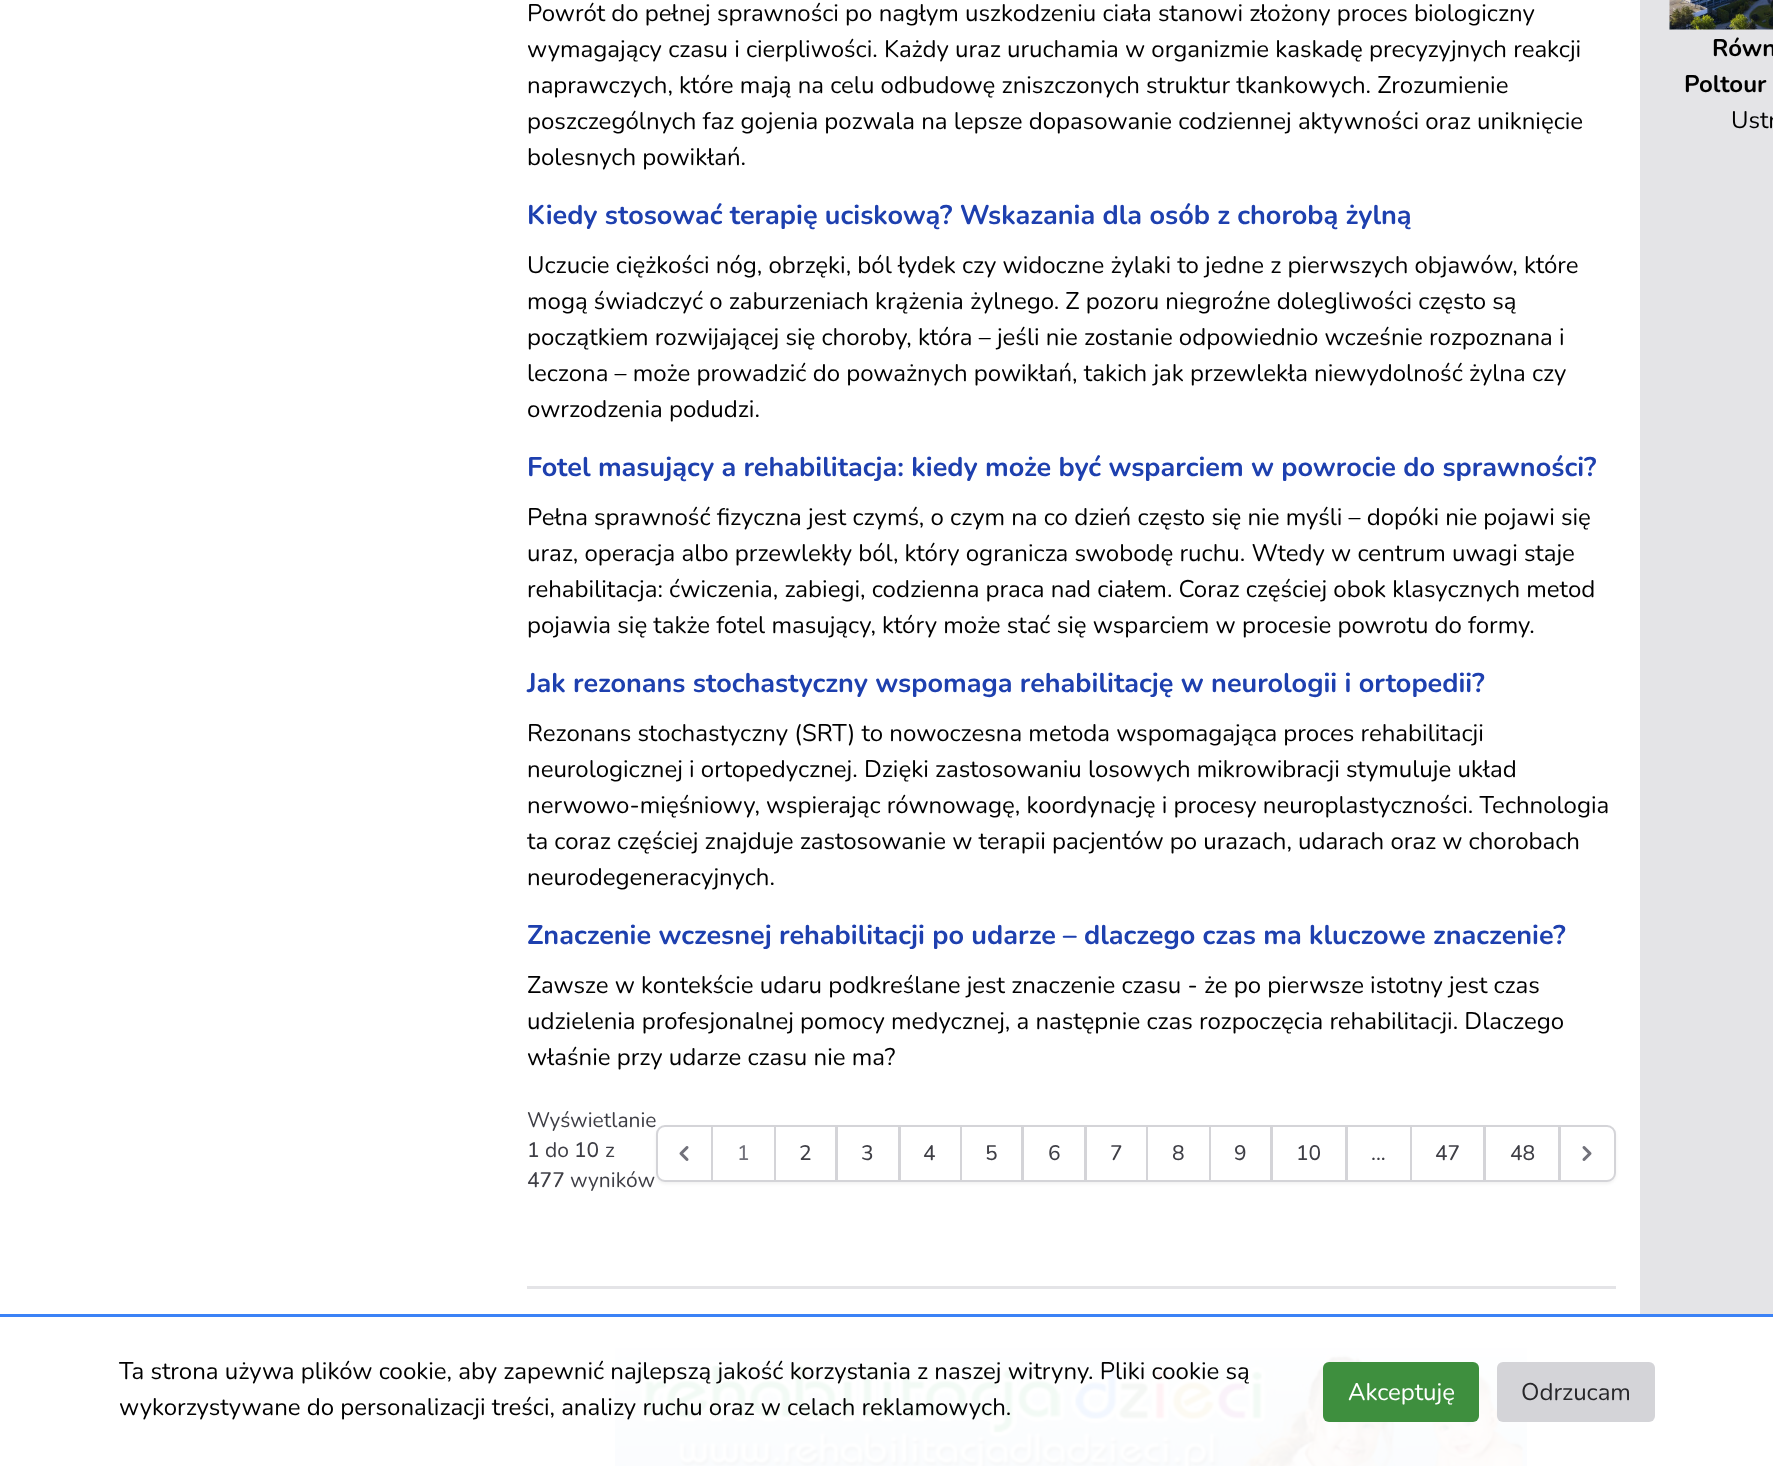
async function draw(canvas) {
  canvas.width = 1773
  canvas.height = 1466
  const ctx = canvas.getContext('2d')
  ctx.miterLimit = 4
  ctx.fontKerning = 'normal'
  async function loadImage(src) {
    const img = new Image()
    img.src = src
    await img.decode()
    return img
  }

  ctx.fillStyle = '#fff'
  ctx.fillRect(0, 0, 1773, 1466)
  ctx.font = '24px Nunito'
  ctx.fillStyle = '#000'
  ctx.fillText('Powrót do pełnej sprawności po nagłym uszkodzeniu ciała stanowi złożony proces biologiczny', 527, 21)
  ctx.fillText('wymagający czasu i cierpliwości. Każdy uraz uruchamia w organizmie kaskadę precyzyjnych reakcji', 527, 57)
  ctx.fillText('naprawczych, które mają na celu odbudowę zniszczonych struktur tkankowych. Zrozumienie', 527, 93)
  ctx.fillText('poszczególnych faz gojenia pozwala na lepsze dopasowanie codziennej aktywności oraz uniknięcie', 527, 129)
  ctx.fillText('bolesnych powikłań.', 527, 165)
  ctx.font = 'bold 27px Nunito'
  ctx.fillStyle = '#1e40af'
  ctx.fillText('Kiedy stosować terapię uciskową? Wskazania dla osób z chorobą żylną', 527, 224)
  ctx.font = '24px Nunito'
  ctx.fillStyle = '#000'
  ctx.fillText('Uczucie ciężkości nóg, obrzęki, ból łydek czy widoczne żylaki to jedne z pierwszych objawów, które', 527, 273)
  ctx.fillText('mogą świadczyć o zaburzeniach krążenia żylnego. Z pozoru niegroźne dolegliwości często są', 527, 309)
  ctx.fillText('początkiem rozwijającej się choroby, która – jeśli nie zostanie odpowiednio wcześnie rozpoznana i', 527, 345)
  ctx.fillText('leczona – może prowadzić do poważnych powikłań, takich jak przewlekła niewydolność żylna czy', 527, 381)
  ctx.fillText('owrzodzenia podudzi.', 527, 417)
  ctx.font = 'bold 27px Nunito'
  ctx.fillStyle = '#1e40af'
  ctx.fillText('Fotel masujący a rehabilitacja: kiedy może być wsparciem w powrocie do sprawności?', 527, 476)
  ctx.font = '24px Nunito'
  ctx.fillStyle = '#000'
  ctx.fillText('Pełna sprawność fizyczna jest czymś, o czym na co dzień często się nie myśli – dopóki nie pojawi się', 527, 525)
  ctx.fillText('uraz, operacja albo przewlekły ból, który ogranicza swobodę ruchu. Wtedy w centrum uwagi staje', 527, 561)
  ctx.fillText('rehabilitacja: ćwiczenia, zabiegi, codzienna praca nad ciałem. Coraz częściej obok klasycznych metod', 527, 597)
  ctx.fillText('pojawia się także fotel masujący, który może stać się wsparciem w procesie powrotu do formy.', 527, 633)
  ctx.font = 'bold 27px Nunito'
  ctx.fillStyle = '#1e40af'
  ctx.fillText('Jak rezonans stochastyczny wspomaga rehabilitację w neurologii i ortopedii?', 527, 692)
  ctx.font = '24px Nunito'
  ctx.fillStyle = '#000'
  ctx.fillText('Rezonans stochastyczny (SRT) to nowoczesna metoda wspomagająca proces rehabilitacji', 527, 741)
  ctx.fillText('neurologicznej i ortopedycznej. Dzięki zastosowaniu losowych mikrowibracji stymuluje układ', 527, 777)
  ctx.fillText('nerwowo-mięśniowy, wspierając równowagę, koordynację i procesy neuroplastyczności. Technologia', 527, 813)
  ctx.fillText('ta coraz częściej znajduje zastosowanie w terapii pacjentów po urazach, udarach oraz w chorobach', 527, 849)
  ctx.fillText('neurodegeneracyjnych.', 527, 885)
  ctx.font = 'bold 27px Nunito'
  ctx.fillStyle = '#1e40af'
  ctx.fillText('Znaczenie wczesnej rehabilitacji po udarze – dlaczego czas ma kluczowe znaczenie?', 527, 944)
  ctx.font = '24px Nunito'
  ctx.fillStyle = '#000'
  ctx.fillText('Zawsze w kontekście udaru podkreślane jest znaczenie czasu - że po pierwsze istotny jest czas', 527, 993)
  ctx.fillText('udzielenia profesjonalnej pomocy medycznej, a następnie czas rozpoczęcia rehabilitacji. Dlaczego', 527, 1029)
  ctx.fillText('właśnie przy udarze czasu nie ma?', 527, 1065)
  ctx.font = '21px Nunito'
  ctx.fillStyle = '#3f3f46'
  ctx.fillText('Wyświetlanie', 527, 1127)
  ctx.font = '500 21px Nunito'
  ctx.fillText('1', 527, 1157)
  ctx.font = '21px Nunito'
  ctx.fillText('do', 545, 1157)
  ctx.font = '500 21px Nunito'
  ctx.fillText('10', 574, 1157)
  ctx.font = '21px Nunito'
  ctx.fillText('z', 605, 1157)
  ctx.font = '500 21px Nunito'
  ctx.fillText('477', 527, 1187)
  ctx.font = '21px Nunito'
  ctx.fillText('wyników', 570, 1187)
  ctx.fillStyle = '#0000000d'
  ctx.filter = 'blur(1.5px)'
  ctx.beginPath()
  ctx.roundRect(656, 1127, 960, 57, 9)
  ctx.fill()
  ctx.filter = 'none'
  ctx.fillStyle = '#fff'
  ctx.beginPath()
  ctx.roundRect(657, 1126, 55, 55, [8, 0, 0, 8])
  ctx.fill()
  ctx.strokeStyle = '#d4d4d8'
  ctx.lineWidth = 2
  ctx.stroke()
  ctx.drawImage(await loadImage('image0.png'), 679, 1146, 10, 15)
  ctx.beginPath()
  ctx.rect(712, 1126, 63, 55)
  ctx.fill()
  ctx.stroke()
  ctx.font = '500 21px Nunito'
  ctx.fillStyle = '#71717a'
  ctx.fillText('1', 737, 1160)
  ctx.fillStyle = '#fff'
  ctx.beginPath()
  ctx.rect(775, 1126, 61, 55)
  ctx.fill()
  ctx.stroke()
  ctx.fillStyle = '#3f3f46'
  ctx.fillText('2', 799, 1160)
  ctx.fillStyle = '#fff'
  ctx.beginPath()
  ctx.rect(837, 1126, 62, 55)
  ctx.fill()
  ctx.stroke()
  ctx.fillStyle = '#3f3f46'
  ctx.fillText('3', 861, 1160)
  ctx.fillStyle = '#fff'
  ctx.beginPath()
  ctx.rect(900, 1126, 61, 55)
  ctx.fill()
  ctx.stroke()
  ctx.fillStyle = '#3f3f46'
  ctx.fillText('4', 923, 1160)
  ctx.fillStyle = '#fff'
  ctx.beginPath()
  ctx.rect(961, 1126, 61, 55)
  ctx.fill()
  ctx.stroke()
  ctx.fillStyle = '#3f3f46'
  ctx.fillText('5', 985, 1160)
  ctx.fillStyle = '#fff'
  ctx.beginPath()
  ctx.rect(1023, 1126, 62, 55)
  ctx.fill()
  ctx.stroke()
  ctx.fillStyle = '#3f3f46'
  ctx.fillText('6', 1048, 1160)
  ctx.fillStyle = '#fff'
  ctx.beginPath()
  ctx.rect(1086, 1126, 61, 55)
  ctx.fill()
  ctx.stroke()
  ctx.fillStyle = '#3f3f46'
  ctx.fillText('7', 1110, 1160)
  ctx.fillStyle = '#fff'
  ctx.beginPath()
  ctx.rect(1147, 1126, 63, 55)
  ctx.fill()
  ctx.stroke()
  ctx.fillStyle = '#3f3f46'
  ctx.fillText('8', 1172, 1160)
  ctx.fillStyle = '#fff'
  ctx.beginPath()
  ctx.rect(1210, 1126, 61, 55)
  ctx.fill()
  ctx.stroke()
  ctx.fillStyle = '#3f3f46'
  ctx.fillText('9', 1234, 1160)
  ctx.fillStyle = '#fff'
  ctx.beginPath()
  ctx.rect(1272, 1126, 74, 55)
  ctx.fill()
  ctx.stroke()
  ctx.fillStyle = '#3f3f46'
  ctx.fillText('10', 1296, 1160)
  ctx.fillStyle = '#fff'
  ctx.beginPath()
  ctx.rect(1347, 1126, 64, 55)
  ctx.fill()
  ctx.stroke()
  ctx.fillStyle = '#3f3f46'
  ctx.fillText('...', 1371, 1160)
  ctx.fillStyle = '#fff'
  ctx.beginPath()
  ctx.rect(1411, 1126, 73, 55)
  ctx.fill()
  ctx.stroke()
  ctx.fillStyle = '#3f3f46'
  ctx.fillText('47', 1435, 1160)
  ctx.fillStyle = '#fff'
  ctx.beginPath()
  ctx.rect(1485, 1126, 74, 55)
  ctx.fill()
  ctx.stroke()
  ctx.fillStyle = '#3f3f46'
  ctx.fillText('48', 1510, 1160)
  ctx.fillStyle = '#fff'
  ctx.beginPath()
  ctx.roundRect(1560, 1126, 55, 55, [0, 8, 8, 0])
  ctx.fill()
  ctx.stroke()
  ctx.drawImage(await loadImage('image1.png'), 1582, 1146, 10, 15)
  ctx.fillStyle = '#e4e4e7'
  ctx.fillRect(527, 1286, 1089, 3)
  ctx.drawImage(await loadImage('image2.png'), 615, 1348, 912, 118)
  ctx.fillRect(1640, 0, 133, 1314)
  ctx.drawImage(await loadImage('image3.png'), 1669, 0, 104, 30)
  ctx.font = 'bold 24px Nunito'
  ctx.fillStyle = '#000'
  ctx.fillText('Równ', 1712, 56)
  ctx.fillText('Poltour', 1684, 92)
  ctx.font = '24px Nunito'
  ctx.fillText('Ustr', 1731, 128)
  ctx.fillStyle = '#3b82f6'
  ctx.fillRect(0, 1314, 1773, 3)
  ctx.fillStyle = '#000'
  ctx.fillText('Ta strona używa plików cookie, aby zapewnić najlepszą jakość korzystania z naszej witryny. Pliki cookie są', 119, 1379)
  ctx.fillText('wykorzystywane do personalizacji treści, analizy ruchu oraz w celach reklamowych.', 119, 1415)
  ctx.fillStyle = '#3e8f3e'
  ctx.beginPath()
  ctx.roundRect(1323, 1362, 156, 60, 6)
  ctx.fill()
  ctx.fillStyle = '#fff'
  ctx.fillText('Akceptuję', 1348, 1400)
  ctx.fillStyle = '#d4d4d8'
  ctx.beginPath()
  ctx.roundRect(1497, 1362, 158, 60, 6)
  ctx.fill()
  ctx.fillStyle = '#27272a'
  ctx.fillText('Odrzucam', 1521, 1400)
}

draw(document.querySelector('canvas'))
